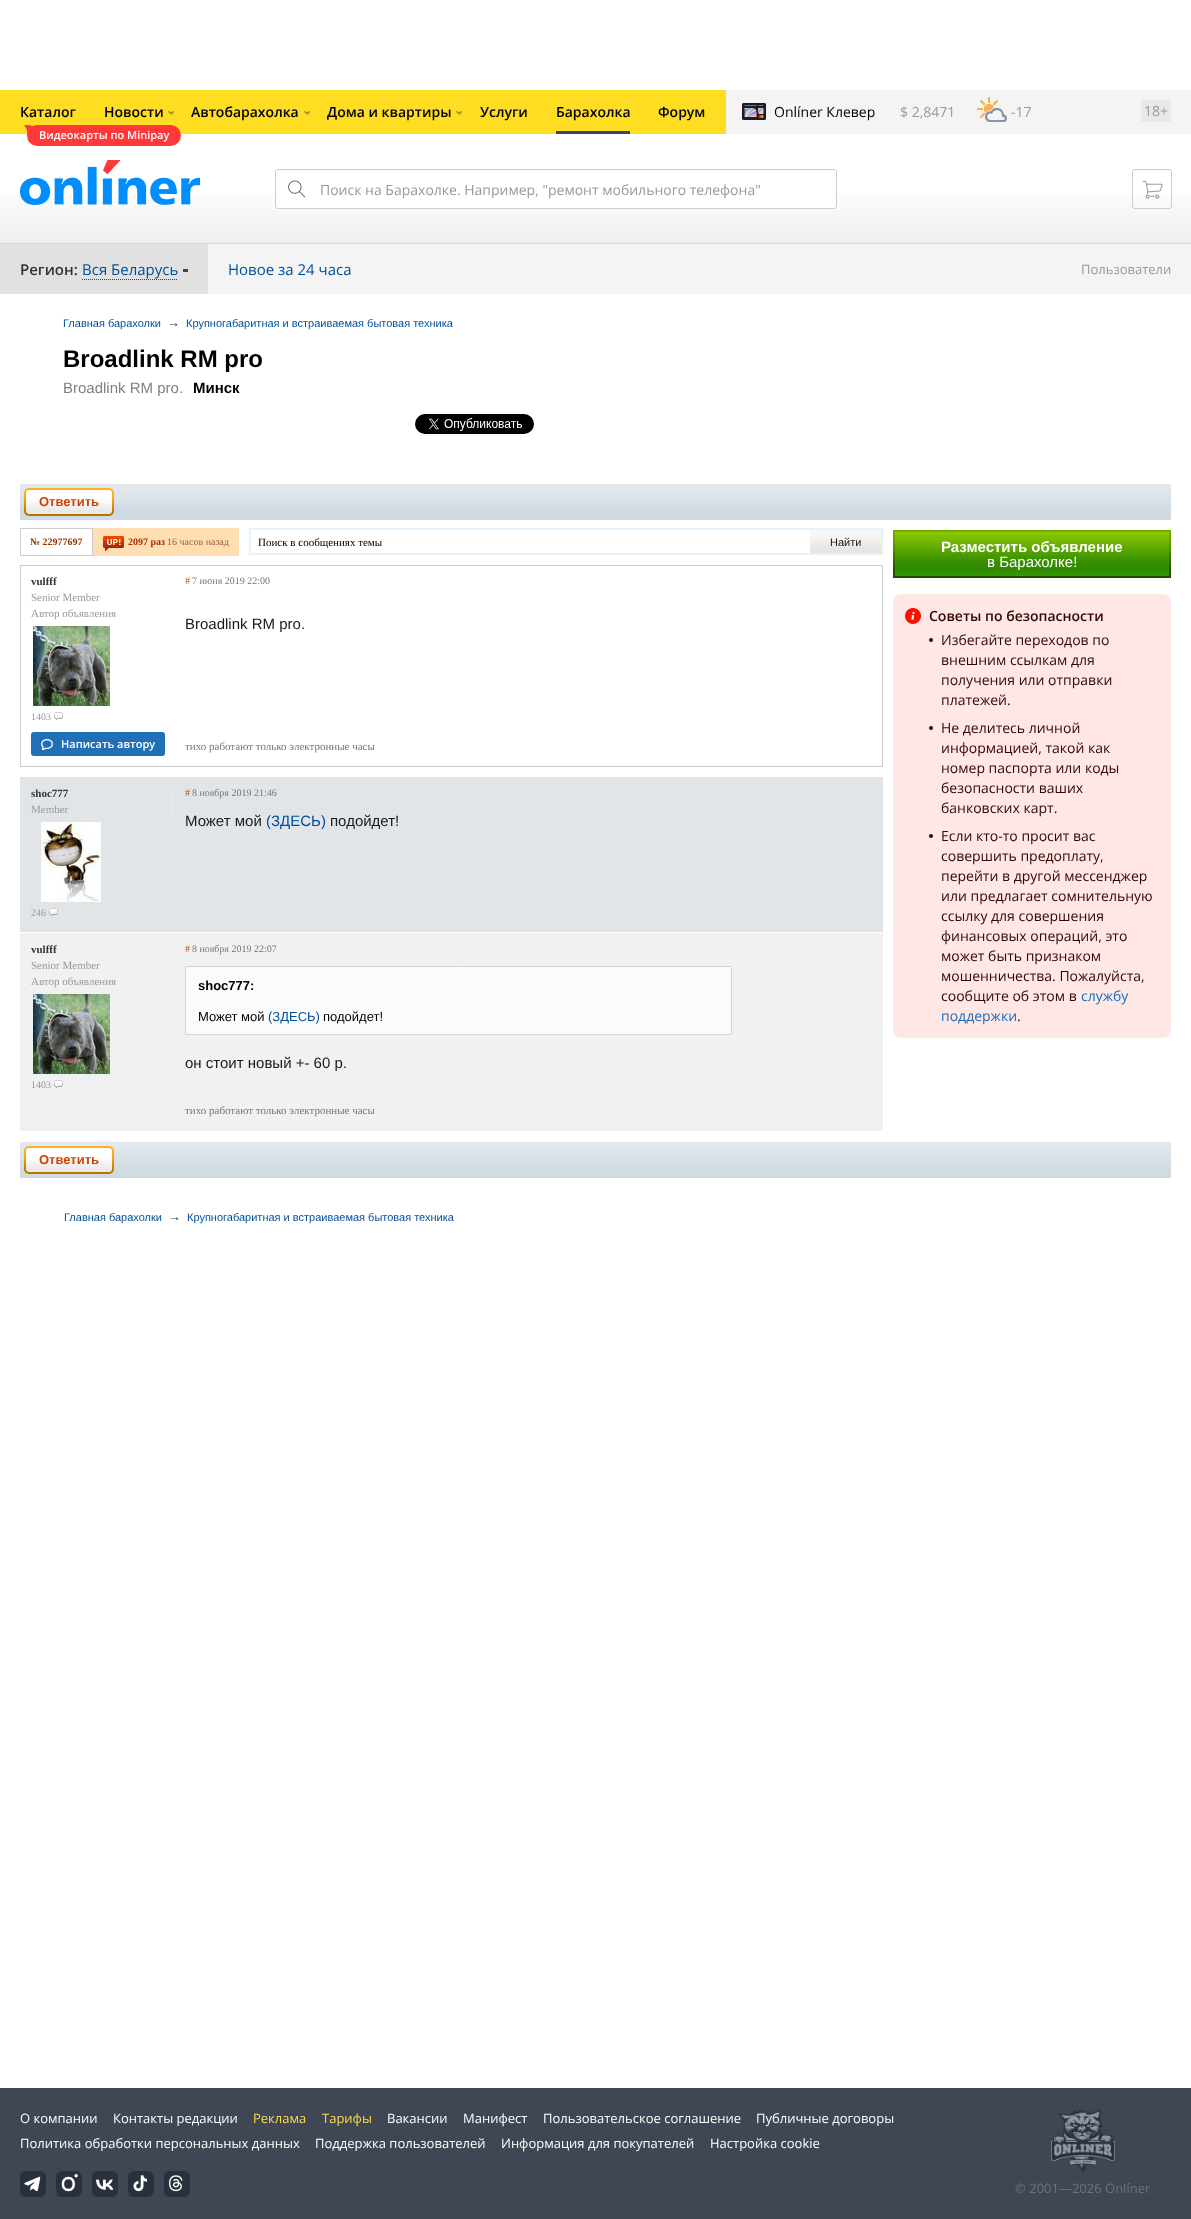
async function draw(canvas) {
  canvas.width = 1191
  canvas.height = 2219
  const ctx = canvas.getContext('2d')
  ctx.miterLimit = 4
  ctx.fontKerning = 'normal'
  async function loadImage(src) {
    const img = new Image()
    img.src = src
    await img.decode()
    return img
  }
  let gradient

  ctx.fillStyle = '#fff'
  ctx.fillRect(0, 0, 1191, 2219)
  gradient = ctx.createLinearGradient(596, 90, 596, 280)
  gradient.addColorStop(0, '#fff')
  gradient.addColorStop(0.5, '#fff')
  gradient.addColorStop(1, '#e3e3e3')
  ctx.fillStyle = gradient
  ctx.fillRect(0, 193, 1191, 50)
  ctx.fillStyle = '#f4f4f4'
  ctx.fillRect(726, 90, 465, 44)
  ctx.fillStyle = '#fd2'
  ctx.fillRect(0, 90, 726, 44)
  ctx.font = '600 14px Open Sans'
  ctx.fillStyle = '#000'
  ctx.fillText('Каталог', 20, 117)
  ctx.fillStyle = '#ff3939'
  ctx.beginPath()
  ctx.roundRect(27, 125, 154, 21, 10.5)
  ctx.fill()
  ctx.drawImage(await loadImage('image0.png'), 24, 125, 13, 10)
  ctx.font = '600 11px Open Sans'
  ctx.fillStyle = '#fff'
  ctx.fillText('Видеокарты по Minipay', 39, 139)
  ctx.font = '600 14px Open Sans'
  ctx.fillStyle = '#000'
  ctx.fillText('Автобарахолка', 191, 117)
  ctx.fillStyle = '#998514'
  ctx.save()
  ctx.translate(311, 115)
  ctx.rotate(-90 * Math.PI / 180)
  ctx.fillText('‹', 0, 0)
  ctx.restore()
  ctx.fillStyle = '#000'
  ctx.fillText('Форум', 658, 117)
  ctx.fillText('Новости', 104, 117)
  ctx.fillStyle = '#998514'
  ctx.save()
  ctx.translate(175, 115)
  ctx.rotate(-90 * Math.PI / 180)
  ctx.fillText('‹', 0, 0)
  ctx.restore()
  ctx.fillStyle = '#000'
  ctx.fillText('Дома и квартиры', 327, 117)
  ctx.fillStyle = '#998514'
  ctx.save()
  ctx.translate(463, 115)
  ctx.rotate(-90 * Math.PI / 180)
  ctx.fillText('‹', 0, 0)
  ctx.restore()
  ctx.fillStyle = '#000'
  ctx.fillText('Услуги', 480, 117)
  ctx.fillText('Барахолка', 556, 117)
  ctx.fillStyle = '#3e4753'
  ctx.fillRect(556, 131, 74, 3)
  ctx.drawImage(await loadImage('image1.png'), 742, 103, 24, 17)
  ctx.font = '14px Open Sans'
  ctx.fillStyle = '#000'
  ctx.fillText('Onlíner Клевер', 774, 117)
  ctx.fillStyle = '#999'
  ctx.fillText('$ 2,8471', 900, 117)
  ctx.drawImage(await loadImage('image2.png'), 976, 97, 31, 25)
  ctx.fillText('-17', 1011, 117)
  ctx.fillStyle = '#e8e8e8'
  ctx.beginPath()
  ctx.roundRect(1141, 100, 30, 22, 2)
  ctx.fill()
  ctx.fillStyle = '#999'
  ctx.fillText('18+', 1144, 116)
  ctx.drawImage(await loadImage('image3.png'), 20, 160, 180, 45)
  ctx.fillStyle = '#fff'
  ctx.beginPath()
  ctx.roundRect(275, 169, 562, 40, 3)
  ctx.fill()
  ctx.drawImage(await loadImage('image4.png'), 288, 180, 18, 18)
  ctx.beginPath()
  ctx.roundRect(275.5, 169.5, 561, 39, 2.5)
  ctx.strokeStyle = '#ccc'
  ctx.stroke()
  ctx.fillStyle = '#999'
  ctx.fillText('Поиск на Барахолке. Например, "ремонт мобильного телефона"', 320, 195)
  ctx.beginPath()
  ctx.roundRect(1132.5, 169.5, 39, 39, 2.5)
  ctx.stroke()
  ctx.drawImage(await loadImage('image5.png'), 1142, 180, 21, 19)
  ctx.fillStyle = '#d8d8d8'
  ctx.fillRect(0, 243, 1191, 1)
  ctx.fillStyle = '#f4f4f4'
  ctx.fillRect(208, 244, 983, 50)
  ctx.fillStyle = '#e1e1e1'
  ctx.fillRect(0, 244, 208, 50)
  ctx.font = '600 15px Open Sans'
  ctx.fillStyle = '#333'
  ctx.fillText('Регион:', 20, 275)
  ctx.font = '15px Open Sans'
  ctx.fillStyle = '#004d99'
  ctx.fillText('Вся Беларусь', 82, 275)
  ctx.beginPath()
  ctx.moveTo(82, 279.5)
  ctx.lineTo(178, 279.5)
  ctx.strokeStyle = '#004d99'
  ctx.setLineDash([1, 1])
  ctx.stroke()
  ctx.fillStyle = '#444'
  ctx.fillRect(183, 269, 5, 3)
  ctx.fillStyle = '#004d99'
  ctx.fillText('Новое за 24 часа', 228, 275)
  ctx.font = '13px Open Sans'
  ctx.fillStyle = '#999'
  ctx.fillText('Пользователи', 1081, 274)
  ctx.font = '11px Liberation Sans'
  ctx.fillStyle = '#004d99'
  ctx.fillText('Главная барахолки', 63, 327)
  ctx.font = '13px Liberation Sans'
  ctx.fillStyle = '#333'
  ctx.fillText('→', 167, 327)
  ctx.font = '11px Liberation Sans'
  ctx.fillStyle = '#004d99'
  ctx.fillText('Крупногабаритная и встраиваемая бытовая техника', 186, 327)
  ctx.font = 'bold 24px Liberation Sans'
  ctx.fillStyle = '#000'
  ctx.fillText('Broadlink RM pro', 63, 367)
  ctx.font = '15px Liberation Sans'
  ctx.fillStyle = '#808080'
  ctx.fillText('Broadlink RM pro.', 63, 393)
  ctx.font = 'bold 15px Liberation Sans'
  ctx.fillStyle = '#000'
  ctx.fillText('Минск', 193, 393)
  ctx.drawImage(await loadImage('image6.png'), 415, 414, 119, 20)
  ctx.fillStyle = '#d0dae2'
  ctx.fillRect(20, 507, 1151, 13)
  ctx.drawImage(await loadImage('image7.png'), 20, 484, 1151, 23)
  ctx.drawImage(await loadImage('image8.png'), 24, 488, 7, 28)
  ctx.drawImage(await loadImage('image9.png'), 31, 488, 83, 28)
  ctx.font = 'bold 13px Liberation Sans'
  ctx.fillStyle = '#cb4300'
  ctx.fillText('Ответить', 39, 506)
  ctx.strokeStyle = '#ccc'
  ctx.setLineDash([])
  ctx.strokeRect(20.5, 528.5, 72, 27)
  ctx.font = 'bold 10px Liberation Serif'
  ctx.fillStyle = '#930'
  ctx.fillText('№ 22977697', 30, 545)
  ctx.fillStyle = '#ffdeb2'
  ctx.fillRect(93, 528, 146, 28)
  ctx.drawImage(await loadImage('image10.png'), 103, 536, 21, 15)
  ctx.fillStyle = '#a73300'
  ctx.fillText('2097 раз', 128, 545)
  ctx.font = '10px Liberation Serif'
  ctx.fillStyle = '#995c3d'
  ctx.fillText('16 часов назад', 167, 545)
  ctx.fillStyle = '#e4f2ff'
  ctx.fillRect(249, 528, 634, 27)
  ctx.fillStyle = '#fff'
  ctx.fillRect(251, 530, 559, 23)
  ctx.font = '11px Liberation Serif'
  ctx.fillStyle = '#000'
  ctx.fillText('Поиск в сообщениях темы', 258, 546)
  gradient = ctx.createLinearGradient(846, 530, 846, 553)
  gradient.addColorStop(0, '#f8f8f8')
  gradient.addColorStop(0.28, '#f6f6f6')
  gradient.addColorStop(0.78, '#e7e7e7')
  gradient.addColorStop(1, '#e6e5e6')
  ctx.fillStyle = gradient
  ctx.fillRect(810, 530, 71, 23)
  ctx.font = '11px Liberation Sans'
  ctx.fillStyle = '#1a1a1a'
  ctx.fillText('Найти', 830, 546)
  ctx.strokeRect(20.5, 565.5, 862, 201)
  ctx.font = 'bold 11px Liberation Serif'
  ctx.fillStyle = '#333'
  ctx.fillText('vulfff', 31, 585)
  ctx.font = '11px Liberation Serif'
  ctx.fillStyle = '#999'
  ctx.fillText('Senior Member', 31, 601)
  ctx.fillText('Автор объявления', 31, 617)
  ctx.drawImage(await loadImage('image11.png'), 33, 626, 77, 80)
  ctx.font = '10px Liberation Serif'
  ctx.fillText('1403', 31, 720)
  ctx.drawImage(await loadImage('image12.png'), 54, 712, 9, 8)
  ctx.fillStyle = '#216fb8'
  ctx.beginPath()
  ctx.roundRect(31, 732, 134, 24, 3)
  ctx.fill()
  ctx.drawImage(await loadImage('image13.png'), 41, 739, 12, 11)
  ctx.font = '600 11px Open Sans'
  ctx.fillStyle = '#fff'
  ctx.fillText('Написать автору', 61, 748)
  ctx.font = '10px Liberation Serif'
  ctx.fillStyle = '#cb4300'
  ctx.fillText('#', 185, 584)
  ctx.fillStyle = '#777'
  ctx.fillText('7 июня 2019 22:00', 192, 584)
  ctx.font = '15px Liberation Sans'
  ctx.fillStyle = '#1a1a1a'
  ctx.fillText('Broadlink RM pro.', 185, 629)
  ctx.font = '11px Liberation Serif'
  ctx.fillStyle = '#777'
  ctx.fillText('тихо работают только электронные часы', 185, 750)
  ctx.fillStyle = '#e1e5e8'
  ctx.fillRect(20, 777, 863, 155)
  ctx.font = 'bold 11px Liberation Serif'
  ctx.fillStyle = '#333'
  ctx.fillText('shoc777', 31, 797)
  ctx.drawImage(await loadImage('image14.png'), 169, 785, 6, 37)
  ctx.font = '11px Liberation Serif'
  ctx.fillStyle = '#999'
  ctx.fillText('Member', 31, 813)
  ctx.drawImage(await loadImage('image15.png'), 41, 822, 60, 80)
  ctx.font = '10px Liberation Serif'
  ctx.fillText('246', 31, 916)
  ctx.drawImage(await loadImage('image16.png'), 49, 908, 9, 8)
  ctx.fillStyle = '#cb4300'
  ctx.fillText('#', 185, 796)
  ctx.fillStyle = '#777'
  ctx.fillText('8 ноября 2019 21:46', 192, 796)
  ctx.font = '15px Liberation Sans'
  ctx.fillStyle = '#1a1a1a'
  ctx.fillText('Может мой', 185, 826)
  ctx.fillStyle = '#004d99'
  ctx.fillText('(ЗДЕСЬ)', 266, 826)
  ctx.fillStyle = '#1a1a1a'
  ctx.fillText('подойдет!', 330, 826)
  ctx.fillStyle = '#f0f1f2'
  ctx.fillRect(20, 933, 863, 198)
  ctx.font = 'bold 11px Liberation Serif'
  ctx.fillStyle = '#333'
  ctx.fillText('vulfff', 31, 953)
  ctx.font = '11px Liberation Serif'
  ctx.fillStyle = '#999'
  ctx.fillText('Senior Member', 31, 969)
  ctx.fillText('Автор объявления', 31, 985)
  ctx.drawImage(await loadImage('image11.png'), 33, 994, 77, 80)
  ctx.font = '10px Liberation Serif'
  ctx.fillText('1403', 31, 1088)
  ctx.drawImage(await loadImage('image17.png'), 54, 1080, 9, 8)
  ctx.fillStyle = '#cb4300'
  ctx.fillText('#', 185, 952)
  ctx.fillStyle = '#777'
  ctx.fillText('8 ноября 2019 22:07', 192, 952)
  ctx.fillStyle = '#fbfbfb'
  ctx.beginPath()
  ctx.rect(185.5, 966.5, 546, 68)
  ctx.fill()
  ctx.strokeStyle = '#d4d4d4'
  ctx.stroke()
  ctx.font = 'bold 13px Liberation Sans'
  ctx.fillStyle = '#000'
  ctx.fillText('shoc777:', 198, 990)
  ctx.font = '13px Liberation Sans'
  ctx.fillText('Может мой', 198, 1021)
  ctx.fillStyle = '#004d99'
  ctx.fillText('(ЗДЕСЬ)', 268, 1021)
  ctx.fillStyle = '#000'
  ctx.fillText('подойдет!', 323, 1021)
  ctx.font = '15px Liberation Sans'
  ctx.fillStyle = '#1a1a1a'
  ctx.fillText('он стоит новый +- 60 р.', 185, 1068)
  ctx.font = '11px Liberation Serif'
  ctx.fillStyle = '#777'
  ctx.fillText('тихо работают только электронные часы', 185, 1114)
  gradient = ctx.createLinearGradient(1032, 530, 1032, 578)
  gradient.addColorStop(0, '#77ac00')
  gradient.addColorStop(0.26, '#649700')
  gradient.addColorStop(0.72, '#316100')
  gradient.addColorStop(1, '#1b4900')
  ctx.fillStyle = gradient
  ctx.fillRect(893, 530, 278, 48)
  gradient = ctx.createLinearGradient(1032, 532, 1032, 576)
  gradient.addColorStop(0, '#8ac700')
  gradient.addColorStop(0.16, '#7abc00')
  gradient.addColorStop(0.56, '#449800')
  gradient.addColorStop(0.74, '#328c00')
  gradient.addColorStop(0.86, '#308b00')
  gradient.addColorStop(0.93, '#309200')
  gradient.addColorStop(1, '#389a00')
  ctx.fillStyle = gradient
  ctx.fillRect(895, 532, 274, 44)
  ctx.font = 'bold 15px Liberation Sans'
  ctx.fillStyle = '#fff'
  ctx.fillText('Разместить объявление', 941, 552)
  ctx.font = '15px Liberation Sans'
  ctx.fillText('в Барахолке!', 987, 567)
  ctx.fillStyle = '#ffe7e6'
  ctx.beginPath()
  ctx.roundRect(893, 594, 278, 444, 8)
  ctx.fill()
  ctx.drawImage(await loadImage('image18.png'), 905, 608, 16, 16)
  ctx.font = '600 14px Open Sans'
  ctx.fillStyle = '#330704'
  ctx.fillText('Советы по безопасности', 929, 621)
  ctx.beginPath()
  ctx.arc(931, 640, 2, 0, 2 * Math.PI)
  ctx.fill()
  ctx.font = '14px Open Sans'
  ctx.fillText('Избегайте переходов по', 941, 645)
  ctx.fillText('внешним ссылкам для', 941, 665)
  ctx.fillText('получения или отправки', 941, 685)
  ctx.fillText('платежей.', 941, 705)
  ctx.beginPath()
  ctx.arc(931, 728, 2, 0, 2 * Math.PI)
  ctx.fill()
  ctx.fillText('Не делитесь личной', 941, 733)
  ctx.fillText('информацией, такой как', 941, 753)
  ctx.fillText('номер паспорта или коды', 941, 773)
  ctx.fillText('безопасности ваших', 941, 793)
  ctx.fillText('банковских карт.', 941, 813)
  ctx.beginPath()
  ctx.arc(931, 836, 2, 0, 2 * Math.PI)
  ctx.fill()
  ctx.fillText('Если кто-то просит вас', 941, 841)
  ctx.fillText('совершить предоплату,', 941, 861)
  ctx.fillText('перейти в другой мессенджер', 941, 881)
  ctx.fillText('или предлагает сомнительную', 941, 901)
  ctx.fillText('ссылку для совершения', 941, 921)
  ctx.fillText('финансовых операций, это', 941, 941)
  ctx.fillText('может быть признаком', 941, 961)
  ctx.fillText('мошенничества. Пожалуйста,', 941, 981)
  ctx.fillText('сообщите об этом в', 941, 1001)
  ctx.fillStyle = '#1a6dbc'
  ctx.fillText('службу', 1081, 1001)
  ctx.fillText('поддержки', 941, 1021)
  ctx.fillStyle = '#330704'
  ctx.fillText('.', 1017, 1021)
  ctx.drawImage(await loadImage('image19.png'), 20, 1142, 1151, 36)
  ctx.drawImage(await loadImage('image20.png'), 24, 1146, 7, 28)
  ctx.drawImage(await loadImage('image21.png'), 31, 1146, 83, 28)
  ctx.font = 'bold 13px Liberation Sans'
  ctx.fillStyle = '#cb4300'
  ctx.fillText('Ответить', 39, 1164)
  ctx.font = '11px Liberation Sans'
  ctx.fillStyle = '#004d99'
  ctx.fillText('Главная барахолки', 64, 1221)
  ctx.font = '13px Liberation Sans'
  ctx.fillStyle = '#333'
  ctx.fillText('→', 168, 1221)
  ctx.font = '11px Liberation Sans'
  ctx.fillStyle = '#004d99'
  ctx.fillText('Крупногабаритная и встраиваемая бытовая техника', 187, 1221)
  ctx.fillStyle = '#3e4753'
  ctx.fillRect(0, 2088, 1191, 131)
  ctx.font = '13px Open Sans'
  ctx.fillStyle = '#fff'
  ctx.fillText('О компании', 20, 2123)
  ctx.fillText('Контакты редакции', 113, 2123)
  ctx.fillStyle = '#ffda50'
  ctx.fillText('Реклама', 253, 2123)
  ctx.fillText('Тарифы', 322, 2123)
  ctx.fillStyle = '#fff'
  ctx.fillText('Вакансии', 387, 2123)
  ctx.fillText('Манифест', 463, 2123)
  ctx.fillText('Пользовательское соглашение', 543, 2123)
  ctx.fillText('Публичные договоры', 756, 2123)
  ctx.fillText('Политика обработки персональных данных', 20, 2148)
  ctx.fillText('Поддержка пользователей', 315, 2148)
  ctx.fillText('Информация для покупателей', 501, 2148)
  ctx.fillText('Настройка cookie', 710, 2148)
  ctx.fillStyle = '#28313c'
  ctx.beginPath()
  ctx.roundRect(20, 2171, 26, 26, 6)
  ctx.fill()
  ctx.drawImage(await loadImage('image22.png'), 24, 2176, 17, 16)
  ctx.beginPath()
  ctx.roundRect(56, 2171, 26, 26, 6)
  ctx.fill()
  ctx.beginPath()
  ctx.moveTo(68.5, 2178)
  ctx.bezierCurveTo(75.5, 2178, 75.5, 2190, 68.5, 2190)
  ctx.bezierCurveTo(61, 2190, 61, 2178, 68.5, 2178)
  ctx.closePath()
  ctx.strokeStyle = '#fff'
  ctx.lineWidth = 2.5
  ctx.stroke()
  ctx.fillStyle = '#fff'
  ctx.beginPath()
  ctx.arc(76.1, 2175.8, 1.7, 0, 2 * Math.PI)
  ctx.fill()
  ctx.fillStyle = '#28313c'
  ctx.beginPath()
  ctx.roundRect(92, 2171, 26, 26, 6)
  ctx.fill()
  ctx.drawImage(await loadImage('image23.png'), 96, 2179, 18, 11)
  ctx.beginPath()
  ctx.roundRect(128, 2171, 26, 26, 6)
  ctx.fill()
  ctx.drawImage(await loadImage('image24.png'), 133, 2175, 14, 17)
  ctx.beginPath()
  ctx.roundRect(164, 2171, 26, 26, 6)
  ctx.fill()
  ctx.drawImage(await loadImage('image25.png'), 169, 2175, 14, 17)
  ctx.drawImage(await loadImage('image26.png'), 1051, 2109, 65, 64)
  ctx.fillStyle = '#6b737f'
  ctx.fillText('© 2001—2026 Onlíner', 1015, 2193)
}

draw(document.querySelector('canvas'))
